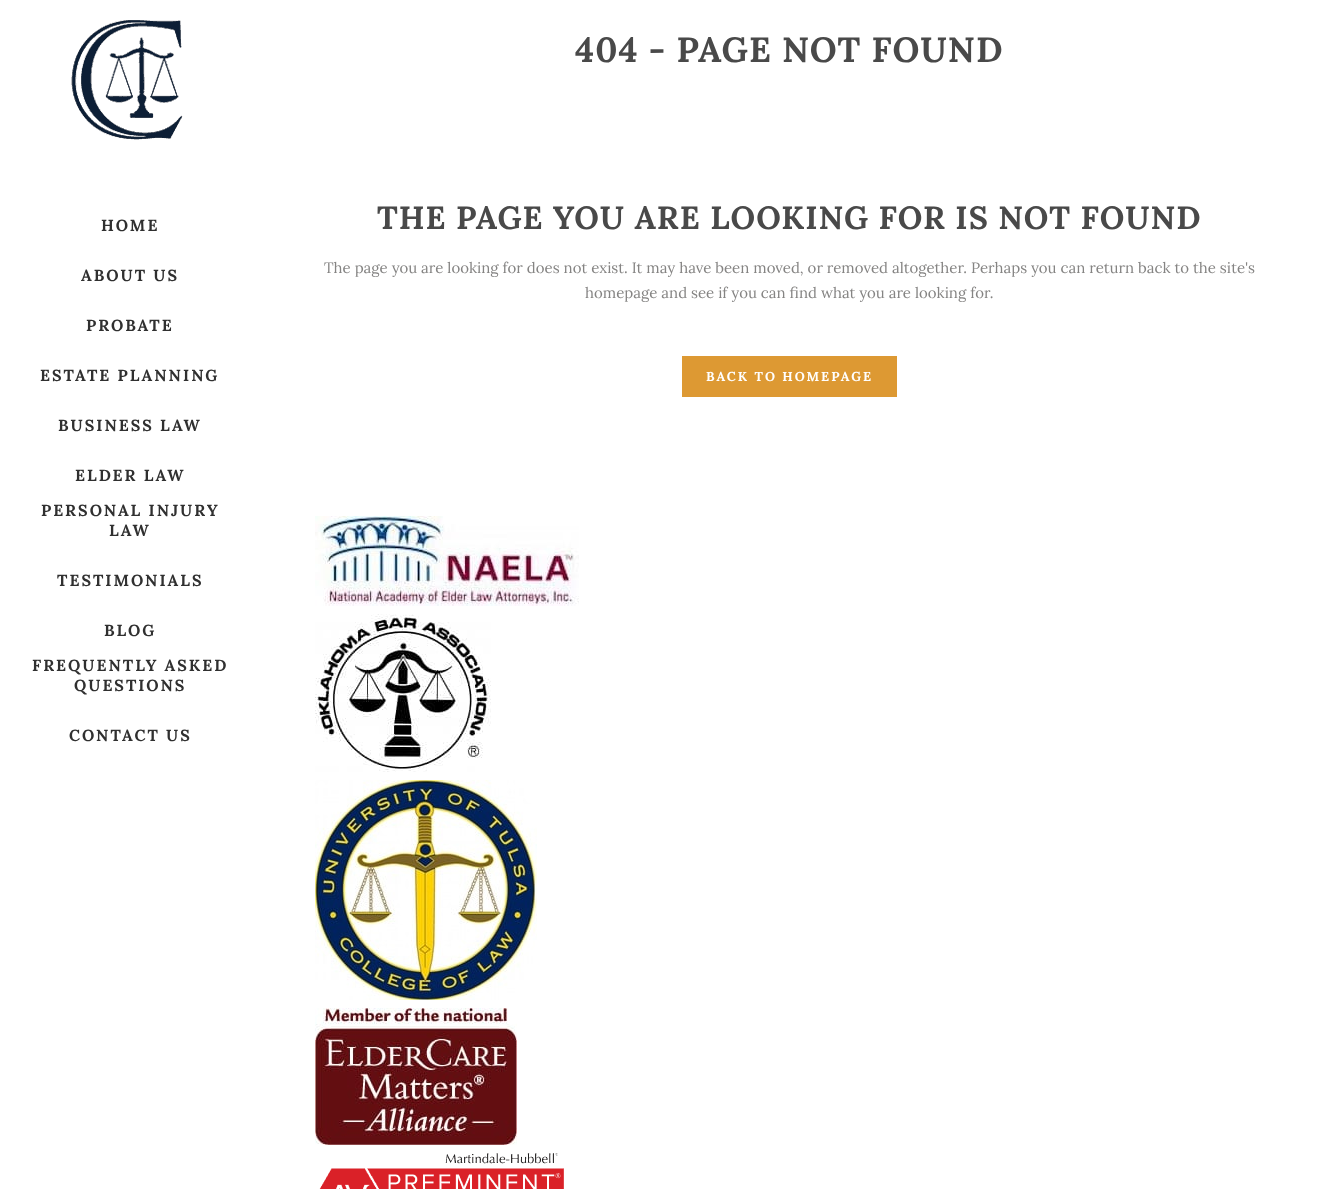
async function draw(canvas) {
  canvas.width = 1319
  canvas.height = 1189
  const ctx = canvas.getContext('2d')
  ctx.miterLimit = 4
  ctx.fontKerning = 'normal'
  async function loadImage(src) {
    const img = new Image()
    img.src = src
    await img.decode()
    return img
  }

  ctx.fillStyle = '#fff'
  ctx.fillRect(0, 0, 1319, 1189)
  ctx.drawImage(await loadImage('image0.png'), 71, 20, 112, 120)
  ctx.letterSpacing = '2px'
  ctx.font = 'bold 16px Lora'
  ctx.fillStyle = '#303030'
  ctx.fillText('HOME', 101, 231)
  ctx.fillText('ABOUT US', 81, 281)
  ctx.fillText('PROBATE', 86, 331)
  ctx.fillText('ESTATE PLANNING', 40, 381)
  ctx.fillText('BUSINESS LAW', 58, 431)
  ctx.fillText('ELDER LAW', 75, 481)
  ctx.fillText('PERSONAL INJURY', 41, 516)
  ctx.fillText('LAW', 109, 536)
  ctx.fillText('TESTIMONIALS', 57, 586)
  ctx.fillText('BLOG', 104, 636)
  ctx.fillText('FREQUENTLY ASKED', 32, 671)
  ctx.fillText('QUESTIONS', 74, 691)
  ctx.fillText('CONTACT US', 69, 741)
  ctx.letterSpacing = '1px'
  ctx.font = 'bold 35px Lora'
  ctx.fillStyle = '#494949'
  ctx.fillText('404 - PAGE NOT FOUND', 575, 62)
  ctx.font = 'bold 32px Lora'
  ctx.fillText('THE PAGE YOU ARE LOOKING FOR IS NOT FOUND', 377, 229)
  ctx.letterSpacing = '0px'
  ctx.font = '15px Lora'
  ctx.fillStyle = '#858483'
  ctx.fillText('The page you are looking for does not exist. It may have been moved, or removed altogether. Perhaps you can return back to the site\'s', 324, 273)
  ctx.fillText('homepage and see if you can find what you are looking for.', 585, 298)
  ctx.fillStyle = '#d93'
  ctx.fillRect(682, 356, 215, 41)
  ctx.letterSpacing = '2px'
  ctx.font = 'bold 13px Lora'
  ctx.fillStyle = '#fff'
  ctx.fillText('BACK TO HOMEPAGE', 706, 381)
  ctx.drawImage(await loadImage('image1.png'), 315, 516, 264, 90)
  ctx.drawImage(await loadImage('image2.png'), 315, 614, 176, 158)
  ctx.drawImage(await loadImage('image3.png'), 315, 780, 222, 220)
  ctx.drawImage(await loadImage('image4.png'), 315, 1008, 202, 137)
  ctx.drawImage(await loadImage('image5.png'), 319, 1153, 245, 36)
}

draw(document.querySelector('canvas'))
